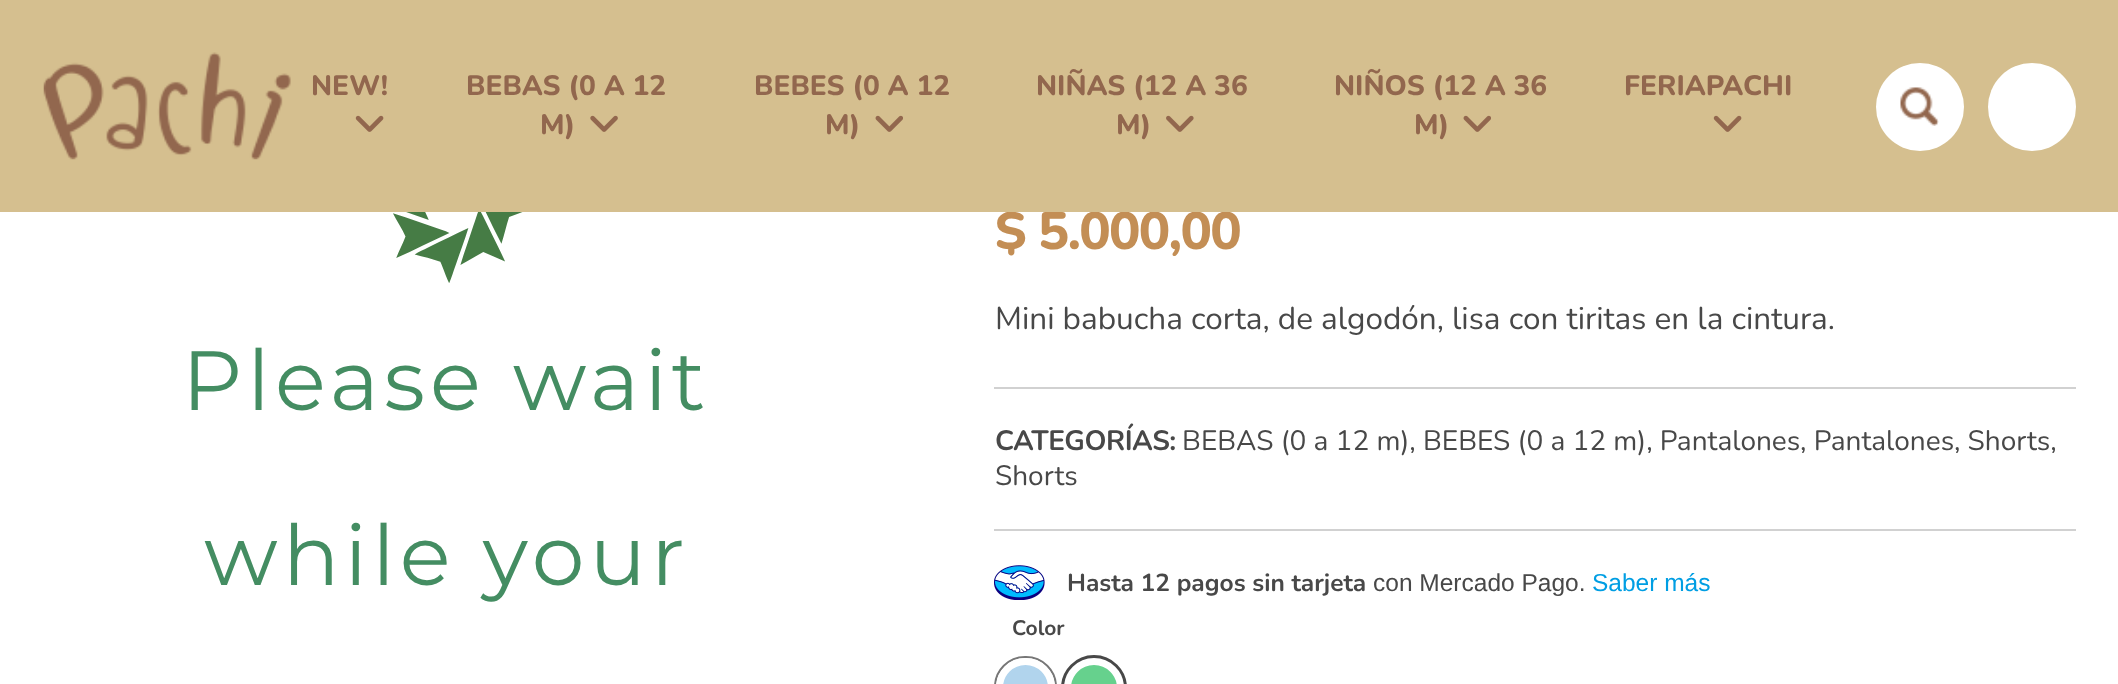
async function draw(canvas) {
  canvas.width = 2118
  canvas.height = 684
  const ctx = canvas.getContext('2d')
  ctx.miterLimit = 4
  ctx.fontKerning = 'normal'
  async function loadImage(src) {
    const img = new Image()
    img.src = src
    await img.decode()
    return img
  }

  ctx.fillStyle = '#fff'
  ctx.fillRect(0, 0, 2118, 684)
  ctx.letterSpacing = '-1.75px'
  ctx.font = '800 52.5px Nunito'
  ctx.fillStyle = '#c38e55'
  ctx.fillText('$ 5.000,00', 995, 249)
  ctx.fillStyle = '#d5bf8f'
  ctx.fillRect(0, 0, 2118, 212)
  ctx.drawImage(await loadImage('image0.png'), 43, 52, 248, 108)
  ctx.letterSpacing = '0px'
  ctx.font = '800 28px Nunito'
  ctx.fillStyle = '#92674e'
  ctx.fillText('NEW!', 311, 95)
  ctx.drawImage(await loadImage('image1.png'), 355, 115, 29, 17)
  ctx.fillText('BEBAS (0 A 12', 466, 95)
  ctx.fillText('M)', 540, 134)
  ctx.drawImage(await loadImage('image2.png'), 590, 115, 28, 17)
  ctx.fillText('BEBES (0 A 12', 754, 95)
  ctx.fillText('M)', 825, 134)
  ctx.drawImage(await loadImage('image3.png'), 875, 115, 28, 17)
  ctx.fillText('NIÑAS (12 A 36', 1036, 95)
  ctx.fillText('M)', 1116, 134)
  ctx.drawImage(await loadImage('image4.png'), 1166, 115, 28, 17)
  ctx.fillText('NIÑOS (12 A 36', 1334, 95)
  ctx.fillText('M)', 1414, 134)
  ctx.drawImage(await loadImage('image3.png'), 1463, 115, 28, 17)
  ctx.fillText('FERIAPACHI', 1624, 95)
  ctx.drawImage(await loadImage('image1.png'), 1713, 115, 29, 17)
  ctx.fillStyle = '#fff'
  ctx.beginPath()
  ctx.arc(1920, 107, 44, 0, 2 * Math.PI)
  ctx.fill()
  ctx.drawImage(await loadImage('image5.png'), 1900, 87, 39, 39)
  ctx.beginPath()
  ctx.arc(2032, 107, 44, 0, 2 * Math.PI)
  ctx.fill()
  ctx.drawImage(await loadImage('image6.png'), 393, 212, 130, 71)
  ctx.letterSpacing = '5px'
  ctx.font = '84px Montserrat'
  ctx.fillStyle = '#448d62'
  ctx.fillText('Please wait', 182, 410)
  ctx.fillText('while your', 204, 585)
  ctx.letterSpacing = '0px'
  ctx.font = '31.5px Nunito'
  ctx.fillStyle = '#484848'
  ctx.fillText('Mini babucha corta, de algodón, lisa con tiritas en la cintura.', 995, 329)
  ctx.fillStyle = '#d1d1d1'
  ctx.fillRect(994, 387, 1082, 2)
  ctx.fillRect(994, 529, 1082, 2)
  ctx.letterSpacing = '-0.5px'
  ctx.font = 'bold 28px Nunito'
  ctx.fillStyle = '#484848'
  ctx.fillText('CATEGORÍAS:', 995, 450)
  ctx.letterSpacing = '0px'
  ctx.font = '28px Nunito'
  ctx.fillText('BEBAS (0 a 12 m), BEBES (0 a 12 m), Pantalones, Pantalones, Shorts,', 1182, 450)
  ctx.fillText('Shorts', 995, 485)
  ctx.drawImage(await loadImage('image7.png'), 994, 565, 51, 35)
  ctx.font = 'bold 24.5px Nunito'
  ctx.fillText('Hasta 12 pagos sin tarjeta', 1067, 591)
  ctx.font = '24.5px Liberation Sans'
  ctx.fillText('con Mercado Pago.', 1373, 591)
  ctx.fillStyle = '#009ee3'
  ctx.fillText('Saber más', 1592, 591)
  ctx.font = 'bold 21px Nunito'
  ctx.fillStyle = '#484848'
  ctx.fillText('Color', 1012, 635)
  ctx.beginPath()
  ctx.roundRect(995, 657, 61, 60, 30.5)
  ctx.strokeStyle = '#777'
  ctx.lineWidth = 2
  ctx.stroke()
  ctx.fillStyle = '#b1d4ed'
  ctx.beginPath()
  ctx.roundRect(999.5, 661.5, 52, 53, 26)
  ctx.fill()
  ctx.strokeStyle = '#fff'
  ctx.lineWidth = 7
  ctx.stroke()
  ctx.beginPath()
  ctx.arc(1094, 688, 31, 0, 2 * Math.PI)
  ctx.strokeStyle = '#484848'
  ctx.lineWidth = 4
  ctx.stroke()
  ctx.fillStyle = '#66d18d'
  ctx.beginPath()
  ctx.arc(1094, 688, 26.5, 0, 2 * Math.PI)
  ctx.fill()
  ctx.strokeStyle = '#fff'
  ctx.lineWidth = 7
  ctx.stroke()
}

draw(document.querySelector('canvas'))
